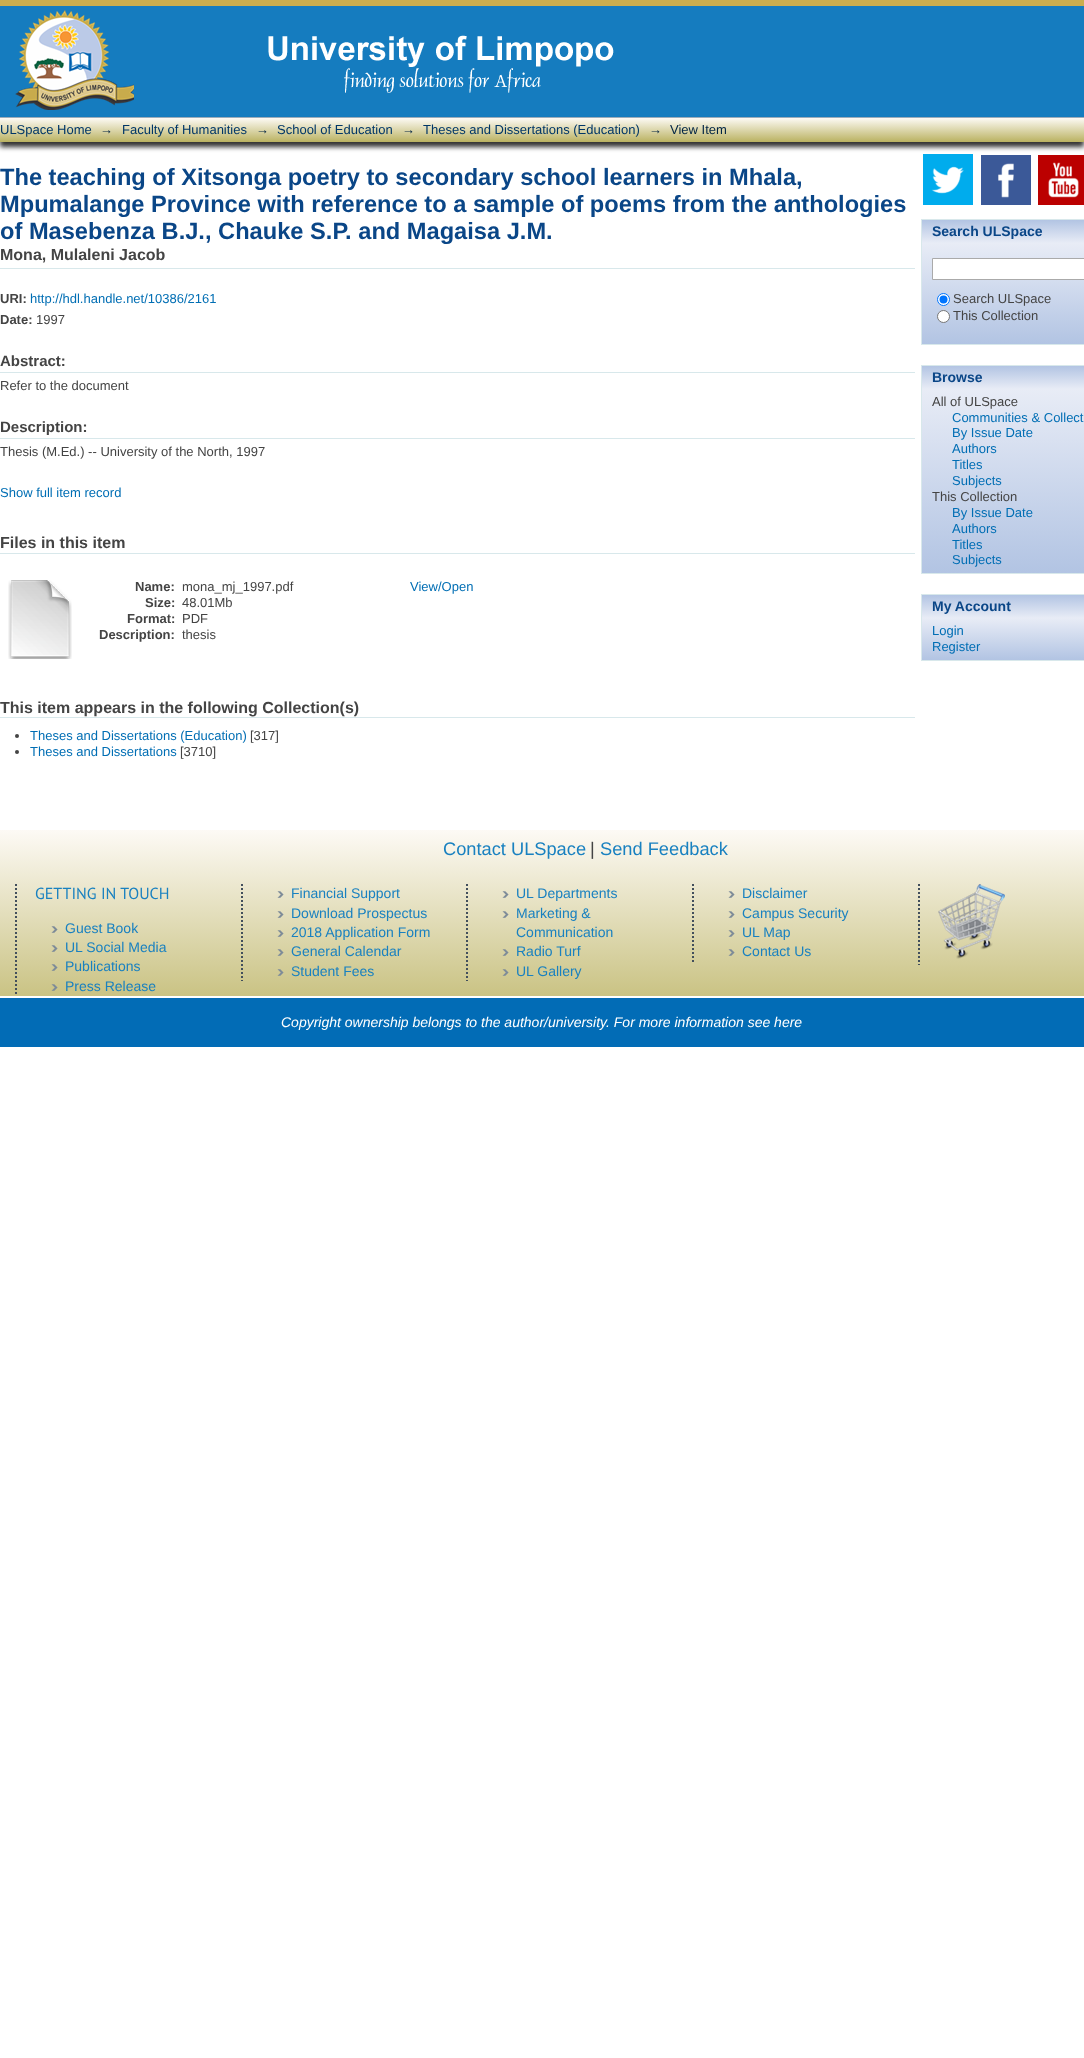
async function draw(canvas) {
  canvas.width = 1084
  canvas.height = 2058
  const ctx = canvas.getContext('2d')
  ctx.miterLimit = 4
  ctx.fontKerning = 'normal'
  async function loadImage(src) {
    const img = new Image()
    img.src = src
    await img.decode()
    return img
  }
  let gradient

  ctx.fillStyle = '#fff'
  ctx.fillRect(0, 0, 1084, 2058)
  ctx.fillStyle = '#157cbf'
  ctx.fillRect(0, 6, 1084, 111)
  ctx.fillStyle = '#cbad4e'
  ctx.fillRect(0, 0, 1084, 6)
  ctx.drawImage(await loadImage('image0.png'), 15, 10, 119, 100)
  ctx.drawImage(await loadImage('image1.png'), 268, 35, 346, 58)
  ctx.drawImage(await loadImage('image3.png'), 923, 154, 50, 51)
  ctx.drawImage(await loadImage('image4.png'), 981, 155, 50, 50)
  ctx.drawImage(await loadImage('image5.png'), 1038, 155, 46, 50)
  ctx.fillStyle = '#333'
  ctx.filter = 'blur(2.5px)'
  ctx.beginPath()
  ctx.rect(0, 122, 1084, 25)
  ctx.fill()
  ctx.filter = 'none'
  gradient = ctx.createLinearGradient(542, 118, 542, 142)
  gradient.addColorStop(0, '#fdfaf5')
  gradient.addColorStop(1, '#bab261')
  ctx.fillStyle = gradient
  ctx.fillRect(0, 118, 1084, 24)
  ctx.fillStyle = '#9cacba'
  ctx.fillRect(0, 117, 1084, 1)
  ctx.font = '13px Liberation Sans'
  ctx.fillStyle = '#003667'
  ctx.fillText('ULSpace Home', 0, 134)
  ctx.fillStyle = '#002343'
  ctx.fillText('→', 100, 134)
  ctx.fillStyle = '#003667'
  ctx.fillText('Faculty of Humanities', 122, 134)
  ctx.fillStyle = '#002343'
  ctx.fillText('→', 256, 134)
  ctx.fillStyle = '#003667'
  ctx.fillText('School of Education', 277, 134)
  ctx.fillStyle = '#002343'
  ctx.fillText('→', 402, 134)
  ctx.fillStyle = '#003667'
  ctx.fillText('Theses and Dissertations (Education)', 423, 134)
  ctx.fillStyle = '#002343'
  ctx.fillText('→', 649, 134)
  ctx.fillText('View Item', 670, 134)
  ctx.font = 'bold 23.65px Liberation Sans'
  ctx.fillStyle = '#0a4687'
  ctx.fillText('The teaching of Xitsonga poetry to secondary school learners in Mhala,', 0, 185)
  ctx.fillText('Mpumalange Province with reference to a sample of poems from the anthologies', 0, 212)
  ctx.fillText('of Masebenza B.J., Chauke S.P. and Magaisa J.M.', 0, 239)
  ctx.fillStyle = '#d8e8eb'
  ctx.fillRect(0, 268, 915, 1)
  ctx.font = 'bold 16px Liberation Sans'
  ctx.fillStyle = '#444'
  ctx.fillText('Mona, Mulaleni Jacob', 0, 260)
  ctx.font = 'bold 13px Liberation Sans'
  ctx.fillText('URI:', 0, 303)
  ctx.font = '13px Liberation Sans'
  ctx.fillStyle = '#006eb4'
  ctx.fillText('http://hdl.handle.net/10386/2161', 30, 303)
  ctx.font = 'bold 13px Liberation Sans'
  ctx.fillStyle = '#444'
  ctx.fillText('Date:', 0, 324)
  ctx.font = '13px Liberation Sans'
  ctx.fillText('1997', 36, 324)
  ctx.fillStyle = '#d8e8eb'
  ctx.fillRect(0, 372, 915, 1)
  ctx.font = 'bold 15px Liberation Sans'
  ctx.fillStyle = '#444'
  ctx.fillText('Abstract:', 0, 366)
  ctx.font = '13px Liberation Sans'
  ctx.fillText('Refer to the document', 0, 390)
  ctx.fillStyle = '#d8e8eb'
  ctx.fillRect(0, 438, 915, 1)
  ctx.font = 'bold 15px Liberation Sans'
  ctx.fillStyle = '#444'
  ctx.fillText('Description:', 0, 432)
  ctx.font = '13px Liberation Sans'
  ctx.fillText('Thesis (M.Ed.) -- University of the North, 1997', 0, 456)
  ctx.fillStyle = '#006eb4'
  ctx.fillText('Show full item record', 0, 497)
  ctx.fillStyle = '#d8e8eb'
  ctx.fillRect(0, 553, 915, 1)
  ctx.font = 'bold 16px Liberation Sans'
  ctx.fillStyle = '#444'
  ctx.fillText('Files in this item', 0, 548)
  ctx.drawImage(await loadImage('image2.png'), 8, 580, 64, 79)
  ctx.font = 'bold 13px Liberation Sans'
  ctx.fillText('Name:', 135, 591)
  ctx.font = '13px Liberation Sans'
  ctx.fillText('mona_mj_1997.pdf', 182, 591)
  ctx.font = 'bold 13px Liberation Sans'
  ctx.fillText('Size:', 145, 607)
  ctx.font = '13px Liberation Sans'
  ctx.fillText('48.01Mb', 182, 607)
  ctx.font = 'bold 13px Liberation Sans'
  ctx.fillText('Format:', 127, 623)
  ctx.font = '13px Liberation Sans'
  ctx.fillText('PDF', 182, 623)
  ctx.font = 'bold 13px Liberation Sans'
  ctx.fillText('Description:', 99, 639)
  ctx.font = '13px Liberation Sans'
  ctx.fillText('thesis', 182, 639)
  ctx.fillStyle = '#006eb4'
  ctx.fillText('View/Open', 410, 591)
  ctx.fillStyle = '#d8e8eb'
  ctx.fillRect(0, 717, 915, 1)
  ctx.font = 'bold 16px Liberation Sans'
  ctx.fillStyle = '#444'
  ctx.fillText('This item appears in the following Collection(s)', 0, 713)
  ctx.beginPath()
  ctx.arc(17, 736, 2, 0, 2 * Math.PI)
  ctx.fill()
  ctx.font = '13px Liberation Sans'
  ctx.fillStyle = '#006eb4'
  ctx.fillText('Theses and Dissertations (Education)', 30, 740)
  ctx.fillStyle = '#444'
  ctx.fillText('[317]', 250, 740)
  ctx.beginPath()
  ctx.arc(17, 752, 2, 0, 2 * Math.PI)
  ctx.fill()
  ctx.fillStyle = '#006eb4'
  ctx.fillText('Theses and Dissertations', 30, 756)
  ctx.fillStyle = '#444'
  ctx.fillText('[3710]', 180, 756)
  gradient = ctx.createLinearGradient(1046, 220, 1046, 243)
  gradient.addColorStop(0, '#b2c4e3')
  gradient.addColorStop(1, '#e8ecf6')
  ctx.fillStyle = gradient
  ctx.fillRect(922, 220, 162, 23)
  ctx.fillStyle = '#d8e8eb'
  ctx.fillRect(921, 219, 163, 1)
  ctx.fillRect(921, 219, 1, 24)
  ctx.font = 'bold 14px Liberation Sans'
  ctx.fillStyle = '#0a4687'
  ctx.fillText('Search ULSpace', 932, 236)
  gradient = ctx.createLinearGradient(1046, 243, 1046, 344)
  gradient.addColorStop(0, '#e8ecf6')
  gradient.addColorStop(1, '#b2c4e3')
  ctx.fillStyle = gradient
  ctx.fillRect(922, 243, 162, 101)
  ctx.fillStyle = '#d8e8eb'
  ctx.fillRect(921, 344, 163, 1)
  ctx.fillRect(921, 243, 1, 102)
  ctx.fillStyle = '#fff'
  ctx.beginPath()
  ctx.rect(932.5, 258.5, 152, 21)
  ctx.fill()
  ctx.strokeStyle = '#aaa'
  ctx.stroke()
  ctx.beginPath()
  ctx.arc(943.5, 299.5, 6, 0, 2 * Math.PI)
  ctx.fill()
  ctx.strokeStyle = '#0075ff'
  ctx.stroke()
  ctx.fillStyle = '#0075ff'
  ctx.beginPath()
  ctx.arc(943.5, 299.5, 4, 0, 2 * Math.PI)
  ctx.fill()
  ctx.font = '13px Liberation Sans'
  ctx.fillStyle = '#444'
  ctx.fillText('Search ULSpace', 953, 303)
  ctx.fillStyle = '#fff'
  ctx.beginPath()
  ctx.arc(943.5, 316.5, 6, 0, 2 * Math.PI)
  ctx.fill()
  ctx.strokeStyle = '#767676'
  ctx.stroke()
  ctx.fillStyle = '#444'
  ctx.fillText('This Collection', 953, 320)
  gradient = ctx.createLinearGradient(1046, 366, 1046, 389)
  gradient.addColorStop(0, '#b2c4e3')
  gradient.addColorStop(1, '#e8ecf6')
  ctx.fillStyle = gradient
  ctx.fillRect(922, 366, 162, 23)
  ctx.fillStyle = '#d8e8eb'
  ctx.fillRect(921, 365, 163, 1)
  ctx.fillRect(921, 365, 1, 24)
  ctx.font = 'bold 14px Liberation Sans'
  ctx.fillStyle = '#0a4687'
  ctx.fillText('Browse', 932, 382)
  gradient = ctx.createLinearGradient(1046, 389, 1046, 573)
  gradient.addColorStop(0, '#e8ecf6')
  gradient.addColorStop(1, '#b2c4e3')
  ctx.fillStyle = gradient
  ctx.fillRect(922, 389, 162, 184)
  ctx.fillStyle = '#d8e8eb'
  ctx.fillRect(921, 573, 163, 1)
  ctx.fillRect(921, 389, 1, 185)
  ctx.font = '13px Liberation Sans'
  ctx.fillStyle = '#444'
  ctx.fillText('All of ULSpace', 932, 406)
  ctx.fillStyle = '#006eb4'
  ctx.fillText('Communities & Collect', 952, 422)
  ctx.fillText('By Issue Date', 952, 437)
  ctx.fillText('Authors', 952, 453)
  ctx.fillText('Titles', 952, 469)
  ctx.fillText('Subjects', 952, 485)
  ctx.fillStyle = '#444'
  ctx.fillText('This Collection', 932, 501)
  ctx.fillStyle = '#006eb4'
  ctx.fillText('By Issue Date', 952, 517)
  ctx.fillText('Authors', 952, 533)
  ctx.fillText('Titles', 952, 549)
  ctx.fillText('Subjects', 952, 564)
  gradient = ctx.createLinearGradient(1046, 595, 1046, 618)
  gradient.addColorStop(0, '#b2c4e3')
  gradient.addColorStop(1, '#e8ecf6')
  ctx.fillStyle = gradient
  ctx.fillRect(922, 595, 162, 23)
  ctx.fillStyle = '#d8e8eb'
  ctx.fillRect(921, 594, 163, 1)
  ctx.fillRect(921, 594, 1, 24)
  ctx.font = 'bold 14px Liberation Sans'
  ctx.fillStyle = '#0a4687'
  ctx.fillText('My Account', 932, 611)
  gradient = ctx.createLinearGradient(1046, 618, 1046, 660)
  gradient.addColorStop(0, '#e8ecf6')
  gradient.addColorStop(1, '#b2c4e3')
  ctx.fillStyle = gradient
  ctx.fillRect(922, 618, 162, 42)
  ctx.fillStyle = '#d8e8eb'
  ctx.fillRect(921, 660, 163, 1)
  ctx.fillRect(921, 618, 1, 43)
  ctx.font = '13px Liberation Sans'
  ctx.fillStyle = '#006eb4'
  ctx.fillText('Login', 932, 635)
  ctx.fillText('Register', 932, 651)
  gradient = ctx.createLinearGradient(542, 830, 542, 1047)
  gradient.addColorStop(0, '#fdfaf5')
  gradient.addColorStop(1, '#bab261')
  ctx.fillStyle = gradient
  ctx.fillRect(0, 830, 1084, 166)
  ctx.font = '18.25px Liberation Sans'
  ctx.fillStyle = '#1981c0'
  ctx.fillText('Contact ULSpace', 443, 855)
  ctx.fillStyle = '#444'
  ctx.fillText('|', 590, 855)
  ctx.fillStyle = '#1981c0'
  ctx.fillText('Send Feedback', 600, 855)
  ctx.beginPath()
  ctx.moveTo(16, 884)
  ctx.lineTo(16, 996)
  ctx.strokeStyle = '#424f5c'
  ctx.lineWidth = 2
  ctx.setLineDash([2, 2])
  ctx.stroke()
  ctx.font = '16px PT Sans'
  ctx.fillText('GETTING IN TOUCH', 35, 899)
  ctx.drawImage(await loadImage('image6.png'), 51, 926, 7, 7)
  ctx.font = '14px Liberation Sans'
  ctx.fillText('Guest Book', 65, 933)
  ctx.drawImage(await loadImage('image7.png'), 51, 945, 7, 7)
  ctx.fillText('UL Social Media', 65, 952)
  ctx.drawImage(await loadImage('image8.png'), 51, 964, 7, 7)
  ctx.fillText('Publications', 65, 971)
  ctx.drawImage(await loadImage('image9.png'), 51, 984, 7, 7)
  ctx.fillText('Press Release', 65, 991)
  ctx.beginPath()
  ctx.moveTo(242, 884)
  ctx.lineTo(242, 981)
  ctx.stroke()
  ctx.drawImage(await loadImage('image10.png'), 277, 891, 7, 7)
  ctx.fillText('Financial Support', 291, 898)
  ctx.drawImage(await loadImage('image11.png'), 277, 911, 7, 7)
  ctx.fillText('Download Prospectus', 291, 918)
  ctx.drawImage(await loadImage('image12.png'), 277, 930, 7, 7)
  ctx.fillText('2018 Application Form', 291, 937)
  ctx.drawImage(await loadImage('image13.png'), 277, 949, 7, 7)
  ctx.fillText('General Calendar', 291, 956)
  ctx.drawImage(await loadImage('image14.png'), 277, 969, 7, 7)
  ctx.fillText('Student Fees', 291, 976)
  ctx.beginPath()
  ctx.moveTo(467, 884)
  ctx.lineTo(467, 981)
  ctx.stroke()
  ctx.drawImage(await loadImage('image10.png'), 502, 891, 7, 7)
  ctx.fillText('UL Departments', 516, 898)
  ctx.drawImage(await loadImage('image11.png'), 502, 911, 7, 7)
  ctx.fillText('Marketing &', 516, 918)
  ctx.fillText('Communication', 516, 937)
  ctx.drawImage(await loadImage('image13.png'), 502, 949, 7, 7)
  ctx.fillText('Radio Turf', 516, 956)
  ctx.drawImage(await loadImage('image14.png'), 502, 969, 7, 7)
  ctx.fillText('UL Gallery', 516, 976)
  ctx.beginPath()
  ctx.moveTo(693, 884)
  ctx.lineTo(693, 962)
  ctx.stroke()
  ctx.drawImage(await loadImage('image10.png'), 728, 891, 7, 7)
  ctx.fillText('Disclaimer', 742, 898)
  ctx.drawImage(await loadImage('image11.png'), 728, 911, 7, 7)
  ctx.fillText('Campus Security', 742, 918)
  ctx.drawImage(await loadImage('image12.png'), 728, 930, 7, 7)
  ctx.fillText('UL Map', 742, 937)
  ctx.drawImage(await loadImage('image13.png'), 728, 949, 7, 7)
  ctx.fillText('Contact Us', 742, 956)
  ctx.beginPath()
  ctx.moveTo(919, 884)
  ctx.lineTo(919, 965)
  ctx.stroke()
  ctx.drawImage(await loadImage('image15.png'), 938, 884, 67, 75)
  ctx.fillStyle = '#026cb6'
  ctx.fillRect(0, 998, 1084, 49)
  ctx.font = 'italic 14px Liberation Sans'
  ctx.fillStyle = '#fff'
  ctx.fillText('Copyright ownership belongs to the author/university. For more information see here', 281, 1027)
}

draw(document.querySelector('canvas'))
